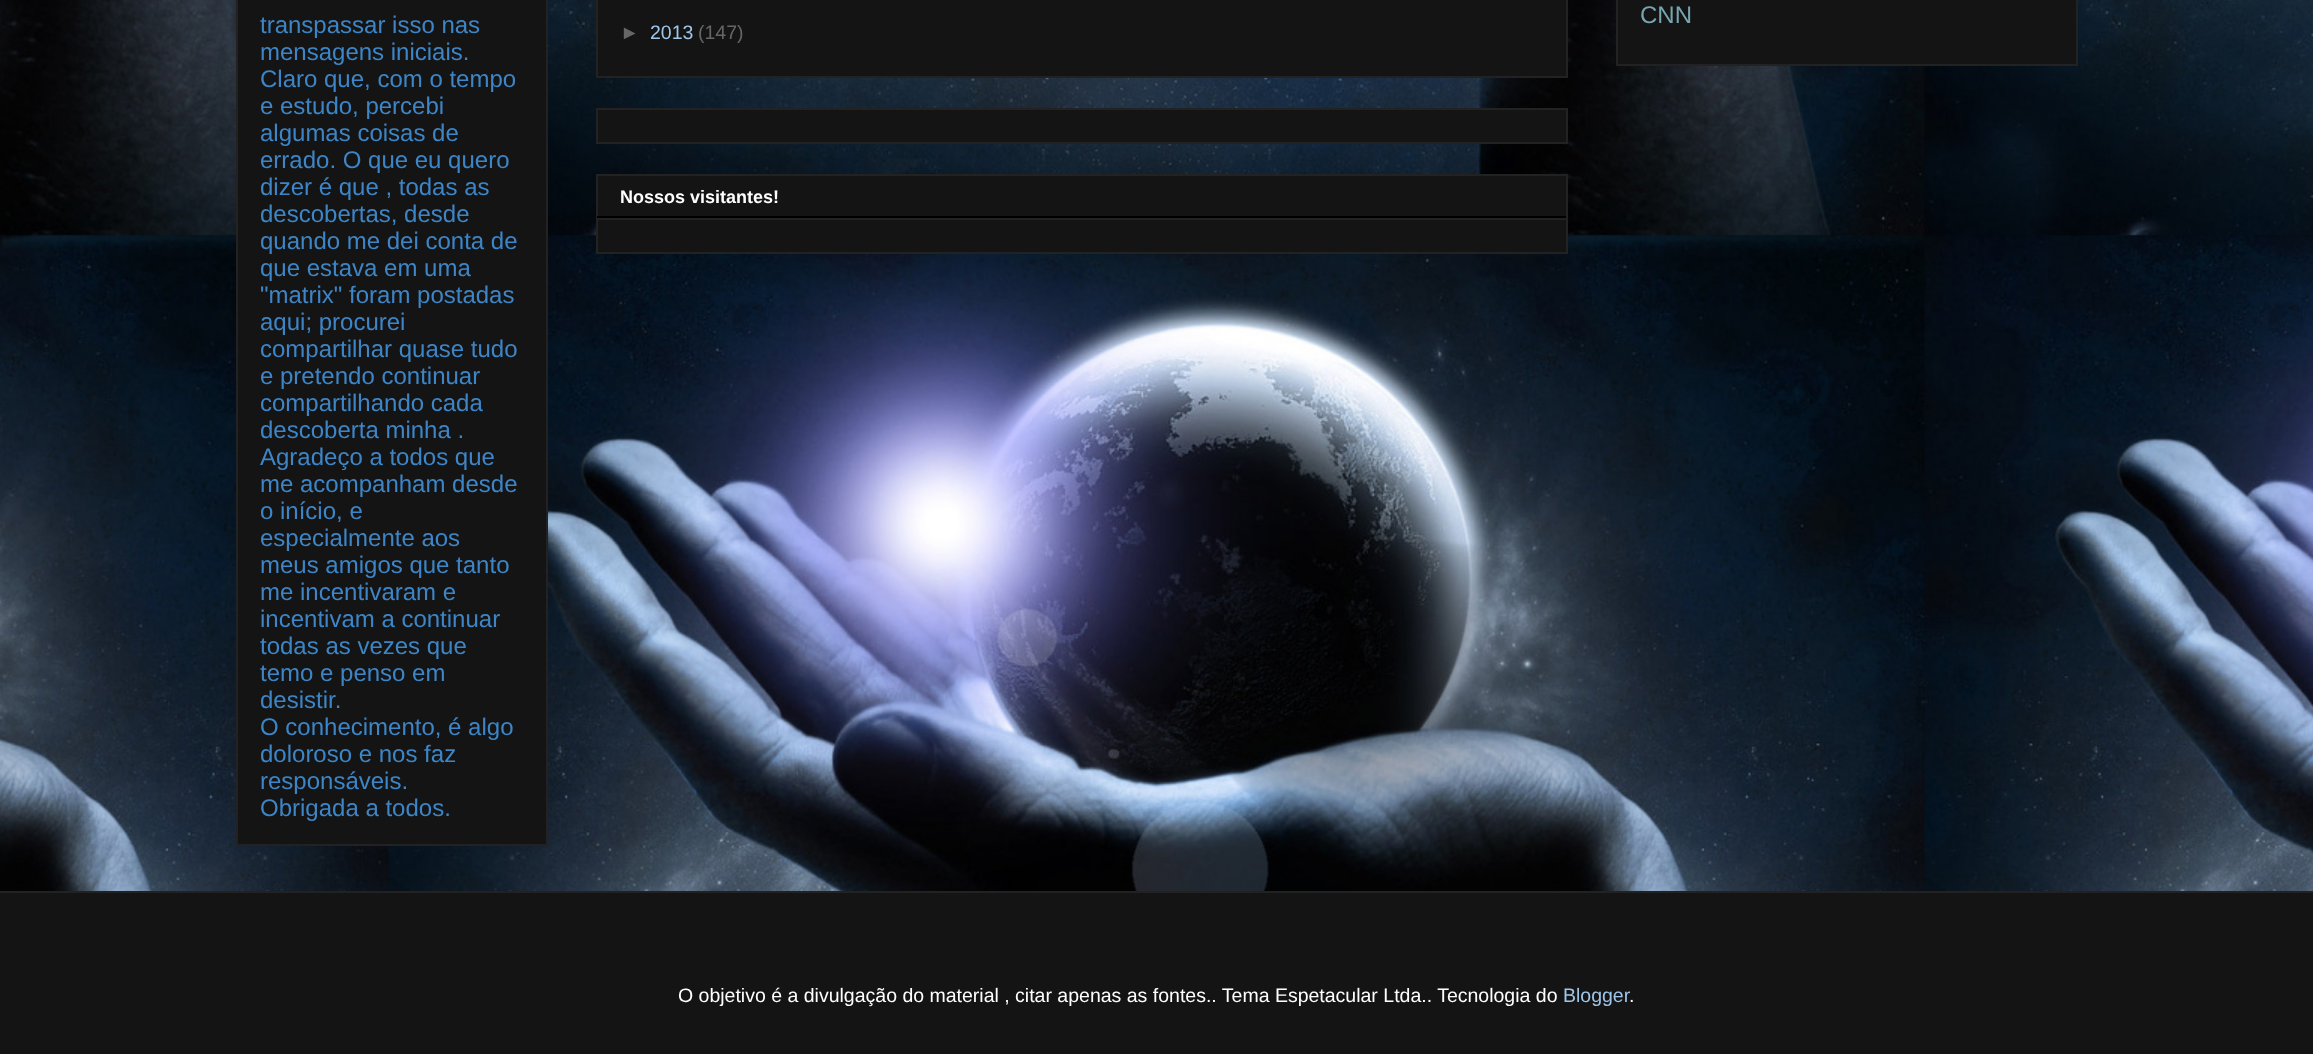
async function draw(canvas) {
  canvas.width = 2313
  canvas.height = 1054
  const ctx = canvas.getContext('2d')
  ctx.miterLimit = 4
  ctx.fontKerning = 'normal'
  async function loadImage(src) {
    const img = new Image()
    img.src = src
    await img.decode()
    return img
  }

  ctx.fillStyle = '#fff'
  ctx.fillRect(0, 0, 2313, 1054)
  ctx.drawImage(await loadImage('image0.png'), 0, 0, 2313, 891)
  ctx.fillStyle = '#141414'
  ctx.beginPath()
  ctx.rect(237, -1, 310, 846)
  ctx.fill()
  ctx.strokeStyle = '#222'
  ctx.lineWidth = 2
  ctx.stroke()
  ctx.font = '24px Liberation Sans'
  ctx.fillStyle = '#3d85c6'
  ctx.fillText('transpassar isso nas', 260, 33)
  ctx.fillText('mensagens iniciais.', 260, 60)
  ctx.fillText('Claro que, com o tempo', 260, 87)
  ctx.fillText('e estudo, percebi', 260, 114)
  ctx.fillText('algumas coisas de', 260, 141)
  ctx.fillText('errado. O que eu quero', 260, 168)
  ctx.fillText('dizer é que , todas as', 260, 195)
  ctx.fillText('descobertas, desde', 260, 222)
  ctx.fillText('quando me dei conta de', 260, 249)
  ctx.fillText('que estava em uma', 260, 276)
  ctx.fillText('"matrix" foram postadas', 260, 303)
  ctx.fillText('aqui; procurei', 260, 330)
  ctx.fillText('compartilhar quase tudo', 260, 357)
  ctx.fillText('e pretendo continuar', 260, 384)
  ctx.fillText('compartilhando cada', 260, 411)
  ctx.fillText('descoberta minha .', 260, 438)
  ctx.fillText('Agradeço a todos que', 260, 465)
  ctx.fillText('me acompanham desde', 260, 492)
  ctx.fillText('o início, e', 260, 519)
  ctx.fillText('especialmente aos', 260, 546)
  ctx.fillText('meus amigos que tanto', 260, 573)
  ctx.fillText('me incentivaram e', 260, 600)
  ctx.fillText('incentivam a continuar', 260, 627)
  ctx.fillText('todas as vezes que', 260, 654)
  ctx.fillText('temo e penso em', 260, 681)
  ctx.fillText('desistir.', 260, 708)
  ctx.fillText('O conhecimento, é algo', 260, 735)
  ctx.fillText('doloroso e nos faz', 260, 762)
  ctx.fillText('responsáveis.', 260, 789)
  ctx.fillText('Obrigada a todos.', 260, 816)
  ctx.fillStyle = '#141414'
  ctx.beginPath()
  ctx.rect(597, -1, 970, 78)
  ctx.fill()
  ctx.stroke()
  ctx.font = '19.5px Liberation Sans'
  ctx.fillStyle = '#666'
  ctx.fillText('►', 620, 39)
  ctx.fillStyle = '#9fc5e8'
  ctx.fillText('2013', 650, 39)
  ctx.fillStyle = '#666'
  ctx.fillText('(147)', 698, 39)
  ctx.fillStyle = '#141414'
  ctx.beginPath()
  ctx.rect(597, 109, 970, 34)
  ctx.fill()
  ctx.stroke()
  ctx.beginPath()
  ctx.rect(597, 175, 970, 78)
  ctx.fill()
  ctx.stroke()
  ctx.fillStyle = '#000'
  ctx.fillRect(597, 216, 969, 2)
  ctx.font = 'bold 18px Liberation Sans'
  ctx.fillStyle = '#fff'
  ctx.fillText('Nossos visitantes!', 620, 203)
  ctx.fillStyle = '#222'
  ctx.fillRect(597, 218, 969, 2)
  ctx.fillStyle = '#141414'
  ctx.beginPath()
  ctx.rect(1617, -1, 460, 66)
  ctx.fill()
  ctx.stroke()
  ctx.font = '24px Liberation Sans'
  ctx.fillStyle = '#76a5af'
  ctx.fillText('CNN', 1640, 23)
  ctx.fillStyle = '#141414'
  ctx.fillRect(0, 893, 2313, 161)
  ctx.fillStyle = '#222'
  ctx.fillRect(0, 891, 2313, 2)
  ctx.font = '19.5px Liberation Sans'
  ctx.fillStyle = '#fff'
  ctx.fillText('O objetivo é a divulgação do material , citar apenas as fontes.. Tema Espetacular Ltda.. Tecnologia do', 678, 1002)
  ctx.fillStyle = '#9fc5e8'
  ctx.fillText('Blogger', 1563, 1002)
  ctx.fillStyle = '#fff'
  ctx.fillText('.', 1629, 1002)
}

draw(document.querySelector('canvas'))
